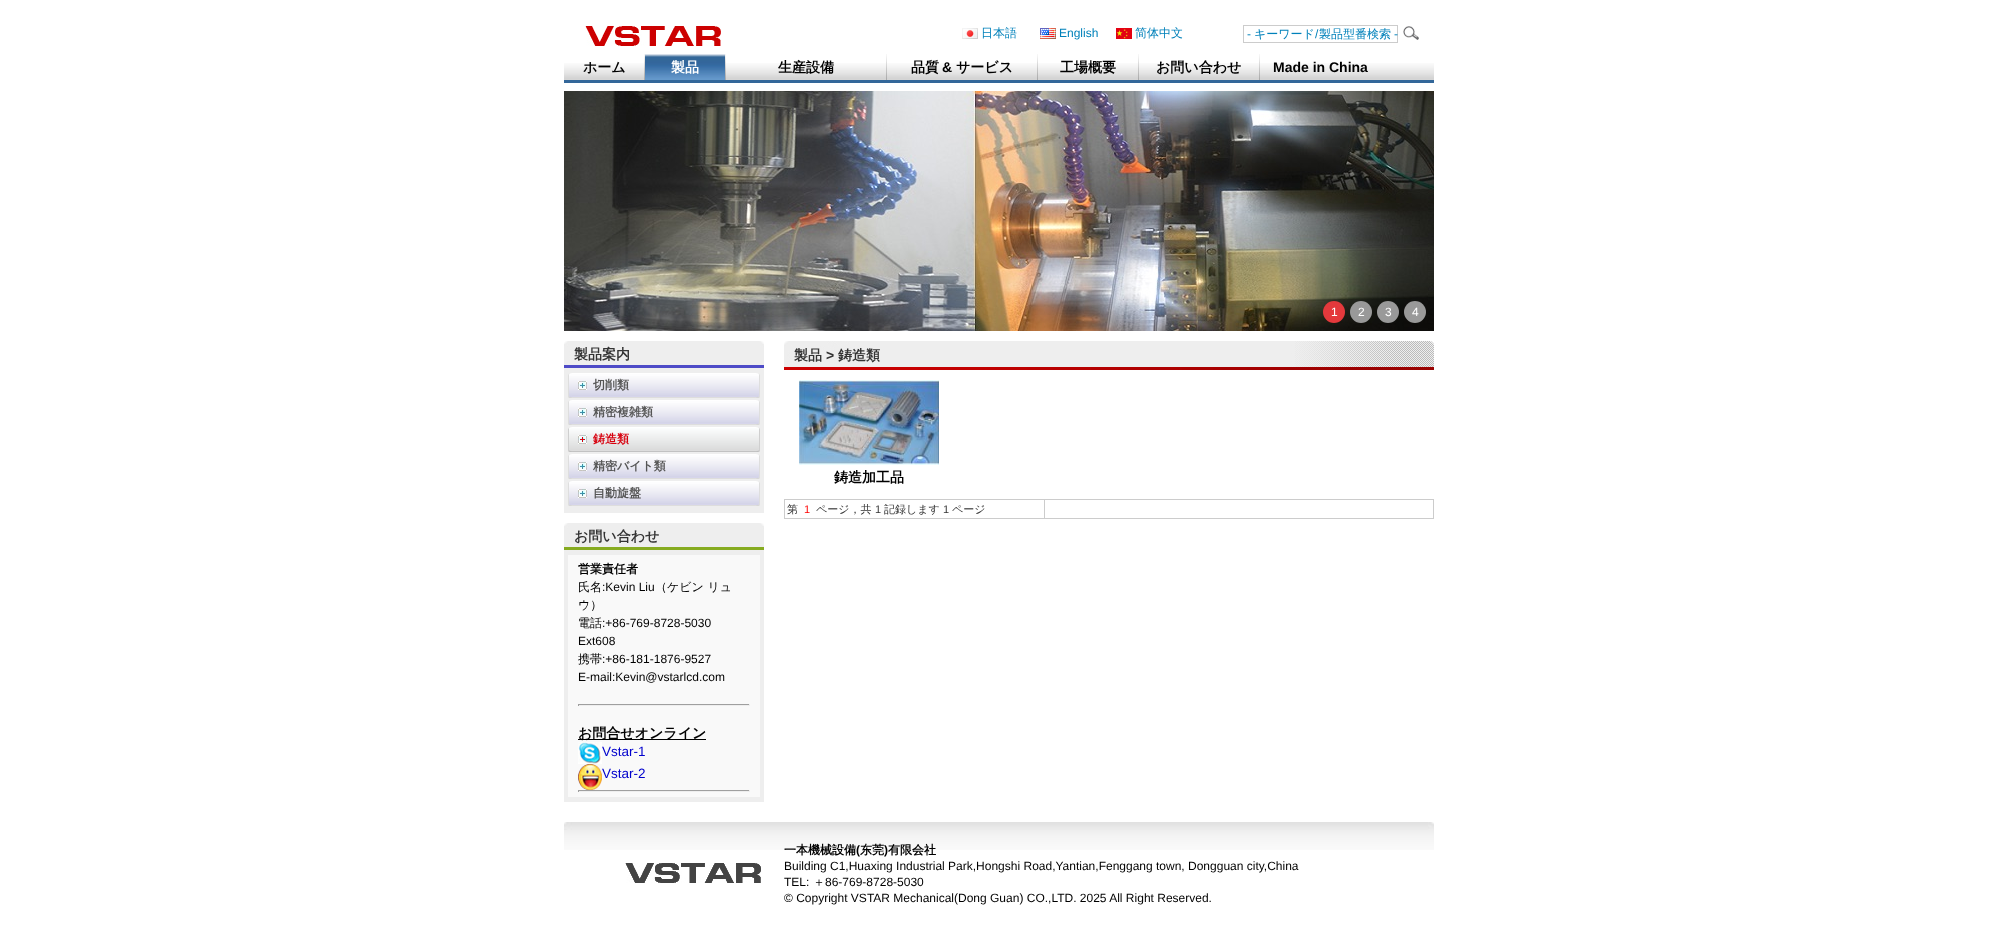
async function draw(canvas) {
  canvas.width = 1998
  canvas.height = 933
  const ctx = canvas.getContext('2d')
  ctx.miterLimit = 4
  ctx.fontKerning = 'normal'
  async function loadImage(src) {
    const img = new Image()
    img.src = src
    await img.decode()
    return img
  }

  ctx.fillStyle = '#fff'
  ctx.fillRect(0, 0, 1998, 933)
  ctx.drawImage(await loadImage('image0.png'), 585, 25, 136, 21)
  ctx.drawImage(await loadImage('image1.png'), 962, 28, 16, 11)
  ctx.font = '500 12px WenQuanYi Zen Hei'
  ctx.fillStyle = '#0081ba'
  ctx.fillText('日本語', 981, 37)
  ctx.drawImage(await loadImage('image2.png'), 1040, 28, 16, 11)
  ctx.font = '12px Liberation Sans'
  ctx.fillText('English', 1059, 37)
  ctx.drawImage(await loadImage('image3.png'), 1116, 28, 16, 11)
  ctx.font = '500 12px WenQuanYi Zen Hei'
  ctx.fillText('简体中文', 1135, 37)
  ctx.strokeStyle = '#ccc'
  ctx.strokeRect(1243.5, 25.5, 154, 17)
  ctx.font = '12px Liberation Sans'
  ctx.fillText('-', 1247, 38)
  ctx.font = '500 12px WenQuanYi Zen Hei'
  ctx.fillText('キーワード', 1254, 38)
  ctx.font = '12px Liberation Sans'
  ctx.fillText('/', 1315, 38)
  ctx.font = '500 12px WenQuanYi Zen Hei'
  ctx.fillText('製品型番検索', 1319, 38)
  ctx.font = '12px Liberation Sans'
  ctx.fillText('-', 1394, 38)
  ctx.drawImage(await loadImage('image4.png'), 1403, 26, 16, 14)
  ctx.drawImage(await loadImage('image5.png'), 564, 63, 870, 17)
  ctx.fillStyle = '#336799'
  ctx.fillRect(564, 80, 870, 3)
  ctx.font = 'bold 14px WenQuanYi Zen Hei'
  ctx.fillStyle = '#000'
  ctx.fillText('ホーム', 583, 72)
  ctx.drawImage(await loadImage('image6.png'), 644, 54, 1, 26)
  ctx.drawImage(await loadImage('image7.png'), 645, 54, 80, 26)
  ctx.fillStyle = '#fff'
  ctx.fillText('製品', 671, 72)
  ctx.drawImage(await loadImage('image6.png'), 725, 54, 1, 26)
  ctx.fillStyle = '#000'
  ctx.fillText('生産設備', 778, 72)
  ctx.drawImage(await loadImage('image6.png'), 886, 54, 1, 26)
  ctx.fillText('品質', 911, 72)
  ctx.font = 'bold 14px Liberation Sans'
  ctx.fillText('&', 942, 72)
  ctx.font = 'bold 14px WenQuanYi Zen Hei'
  ctx.fillText('サービス', 956, 72)
  ctx.drawImage(await loadImage('image6.png'), 1037, 54, 1, 26)
  ctx.fillText('工場概要', 1060, 72)
  ctx.drawImage(await loadImage('image6.png'), 1138, 54, 1, 26)
  ctx.fillText('お問い合わせ', 1156, 72)
  ctx.drawImage(await loadImage('image6.png'), 1259, 54, 1, 26)
  ctx.font = 'bold 14px Liberation Sans'
  ctx.fillText('Made in China', 1273, 72)
  ctx.drawImage(await loadImage('image8.png'), 564, 91, 870, 240)
  ctx.fillStyle = '#e4393c'
  ctx.beginPath()
  ctx.arc(1334, 312, 11, 0, 2 * Math.PI)
  ctx.fill()
  ctx.font = '12px Liberation Sans'
  ctx.fillStyle = '#fff'
  ctx.fillText('1', 1331, 316)
  ctx.fillStyle = '#999'
  ctx.beginPath()
  ctx.arc(1361, 312, 11, 0, 2 * Math.PI)
  ctx.fill()
  ctx.fillStyle = '#fff'
  ctx.fillText('2', 1358, 316)
  ctx.fillStyle = '#999'
  ctx.beginPath()
  ctx.arc(1388, 312, 11, 0, 2 * Math.PI)
  ctx.fill()
  ctx.fillStyle = '#fff'
  ctx.fillText('3', 1385, 316)
  ctx.fillStyle = '#999'
  ctx.beginPath()
  ctx.arc(1415, 312, 11, 0, 2 * Math.PI)
  ctx.fill()
  ctx.fillStyle = '#fff'
  ctx.fillText('4', 1412, 316)
  ctx.drawImage(await loadImage('image9.png'), 564, 341, 200, 27)
  ctx.font = 'bold 14px WenQuanYi Zen Hei'
  ctx.fillStyle = '#343434'
  ctx.fillText('製品案内', 574, 359)
  ctx.fillStyle = '#eee'
  ctx.fillRect(564, 368, 200, 145)
  ctx.drawImage(await loadImage('image10.png'), 568, 373, 192, 25)
  ctx.drawImage(await loadImage('image11.png'), 578, 381, 9, 9)
  ctx.font = 'bold 12px WenQuanYi Zen Hei'
  ctx.fillStyle = '#555'
  ctx.fillText('切削類', 593, 389)
  ctx.drawImage(await loadImage('image10.png'), 568, 400, 192, 25)
  ctx.drawImage(await loadImage('image11.png'), 578, 408, 9, 9)
  ctx.fillText('精密複雑類', 593, 416)
  ctx.drawImage(await loadImage('image12.png'), 568, 427, 192, 1)
  ctx.drawImage(await loadImage('image13.png'), 568, 428, 192, 24)
  ctx.fillStyle = '#d7000e'
  ctx.fillText('鋳造類', 593, 443)
  ctx.drawImage(await loadImage('image10.png'), 568, 454, 192, 25)
  ctx.drawImage(await loadImage('image11.png'), 578, 462, 9, 9)
  ctx.fillStyle = '#555'
  ctx.fillText('精密バイト類', 593, 470)
  ctx.drawImage(await loadImage('image10.png'), 568, 481, 192, 25)
  ctx.drawImage(await loadImage('image11.png'), 578, 489, 9, 9)
  ctx.fillText('自動旋盤', 593, 497)
  ctx.drawImage(await loadImage('image14.png'), 564, 523, 200, 27)
  ctx.font = 'bold 14px WenQuanYi Zen Hei'
  ctx.fillStyle = '#343434'
  ctx.fillText('お問い合わせ', 574, 541)
  ctx.fillStyle = '#eee'
  ctx.fillRect(564, 550, 200, 252)
  ctx.fillStyle = '#f9f9f9'
  ctx.fillRect(568, 555, 192, 242)
  ctx.font = 'bold 12px WenQuanYi Zen Hei'
  ctx.fillStyle = '#000'
  ctx.fillText('営業責任者', 578, 573)
  ctx.font = '500 12px WenQuanYi Zen Hei'
  ctx.fillText('氏名', 578, 591)
  ctx.font = '12px Liberation Sans'
  ctx.fillText(':Kevin Liu', 602, 591)
  ctx.font = '500 12px WenQuanYi Zen Hei'
  ctx.fillText('（ケビン リュ', 655, 591)
  ctx.fillText('ウ）', 578, 609)
  ctx.fillText('電話', 578, 627)
  ctx.font = '12px Liberation Sans'
  ctx.fillText(':+86-769-8728-5030', 602, 627)
  ctx.fillText('Ext608', 578, 645)
  ctx.font = '500 12px WenQuanYi Zen Hei'
  ctx.fillText('携帯', 578, 663)
  ctx.font = '12px Liberation Sans'
  ctx.fillText(':+86-181-1876-9527', 602, 663)
  ctx.fillText('E-mail:Kevin@vstarlcd.com', 578, 681)
  ctx.fillStyle = '#9f9f9f'
  ctx.fillRect(578, 704, 172, 1)
  ctx.fillStyle = '#eee'
  ctx.fillRect(749, 704, 1, 2)
  ctx.fillRect(578, 705, 172, 1)
  ctx.fillStyle = '#9f9f9f'
  ctx.fillRect(578, 704, 1, 2)
  ctx.fillStyle = '#000'
  ctx.fillRect(578, 739, 128, 1)
  ctx.font = 'bold 14px WenQuanYi Zen Hei'
  ctx.fillText('お問合せオンライン', 578, 738)
  ctx.drawImage(await loadImage('image15.png'), 578, 742, 24, 22)
  ctx.font = '13.5px Liberation Sans'
  ctx.fillStyle = '#0000cd'
  ctx.fillText('Vstar-1', 602, 756)
  ctx.drawImage(await loadImage('image16.png'), 578, 764, 24, 26)
  ctx.fillText('Vstar-2', 602, 778)
  ctx.fillStyle = '#9f9f9f'
  ctx.fillRect(578, 790, 172, 1)
  ctx.fillStyle = '#eee'
  ctx.fillRect(749, 790, 1, 2)
  ctx.fillRect(578, 791, 172, 1)
  ctx.fillStyle = '#9f9f9f'
  ctx.fillRect(578, 790, 1, 2)
  ctx.drawImage(await loadImage('image17.png'), 784, 341, 650, 29)
  ctx.font = 'bold 14px WenQuanYi Zen Hei'
  ctx.fillStyle = '#343434'
  ctx.fillText('製品', 794, 360)
  ctx.font = 'bold 14px Liberation Sans'
  ctx.fillText('>', 826, 360)
  ctx.font = 'bold 14px WenQuanYi Zen Hei'
  ctx.fillText('鋳造類', 838, 360)
  ctx.drawImage(await loadImage('image18.png'), 799, 380, 140, 85)
  ctx.fillStyle = '#000'
  ctx.fillText('鋳造加工品', 834, 482)
  ctx.fillStyle = '#ccc'
  ctx.fillRect(784, 499, 650, 1)
  ctx.fillRect(1433, 499, 1, 20)
  ctx.fillRect(784, 518, 650, 1)
  ctx.fillRect(784, 499, 1, 20)
  ctx.font = '500 11px WenQuanYi Zen Hei'
  ctx.fillStyle = '#343434'
  ctx.fillText('第', 787, 513)
  ctx.font = '11px Liberation Sans'
  ctx.fillStyle = '#f00'
  ctx.fillText('1', 804, 513)
  ctx.font = '500 11px WenQuanYi Zen Hei'
  ctx.fillStyle = '#343434'
  ctx.fillText('ページ，共', 816, 513)
  ctx.font = '11px Liberation Sans'
  ctx.fillText('1', 875, 513)
  ctx.font = '500 11px WenQuanYi Zen Hei'
  ctx.fillText('記録します', 884, 513)
  ctx.font = '11px Liberation Sans'
  ctx.fillText('1', 943, 513)
  ctx.font = '500 11px WenQuanYi Zen Hei'
  ctx.fillText('ページ', 952, 513)
  ctx.fillStyle = '#ccc'
  ctx.fillRect(1044, 499, 1, 20)
  ctx.drawImage(await loadImage('image19.png'), 564, 822, 870, 28)
  ctx.drawImage(await loadImage('image20.png'), 625, 863, 136, 20)
  ctx.font = 'bold 12px WenQuanYi Zen Hei'
  ctx.fillStyle = '#000'
  ctx.fillText('一本機械設備', 784, 854)
  ctx.font = 'bold 12px Liberation Sans'
  ctx.fillText('(', 856, 854)
  ctx.font = 'bold 12px WenQuanYi Zen Hei'
  ctx.fillText('东莞', 860, 854)
  ctx.font = 'bold 12px Liberation Sans'
  ctx.fillText(')', 884, 854)
  ctx.font = 'bold 12px WenQuanYi Zen Hei'
  ctx.fillText('有限会社', 888, 854)
  ctx.font = '12px Liberation Sans'
  ctx.fillText('Building C1,Huaxing Industrial Park,Hongshi Road,Yantian,Fenggang town, Dongguan city,China', 784, 870)
  ctx.fillText('TEL:', 784, 886)
  ctx.font = '500 12px WenQuanYi Zen Hei'
  ctx.fillText('＋', 813, 886)
  ctx.font = '12px Liberation Sans'
  ctx.fillText('86-769-8728-5030', 825, 886)
  ctx.fillText('© Copyright VSTAR Mechanical(Dong Guan) CO.,LTD. 2025 All Right Reserved.', 784, 902)
}

draw(document.querySelector('canvas'))
